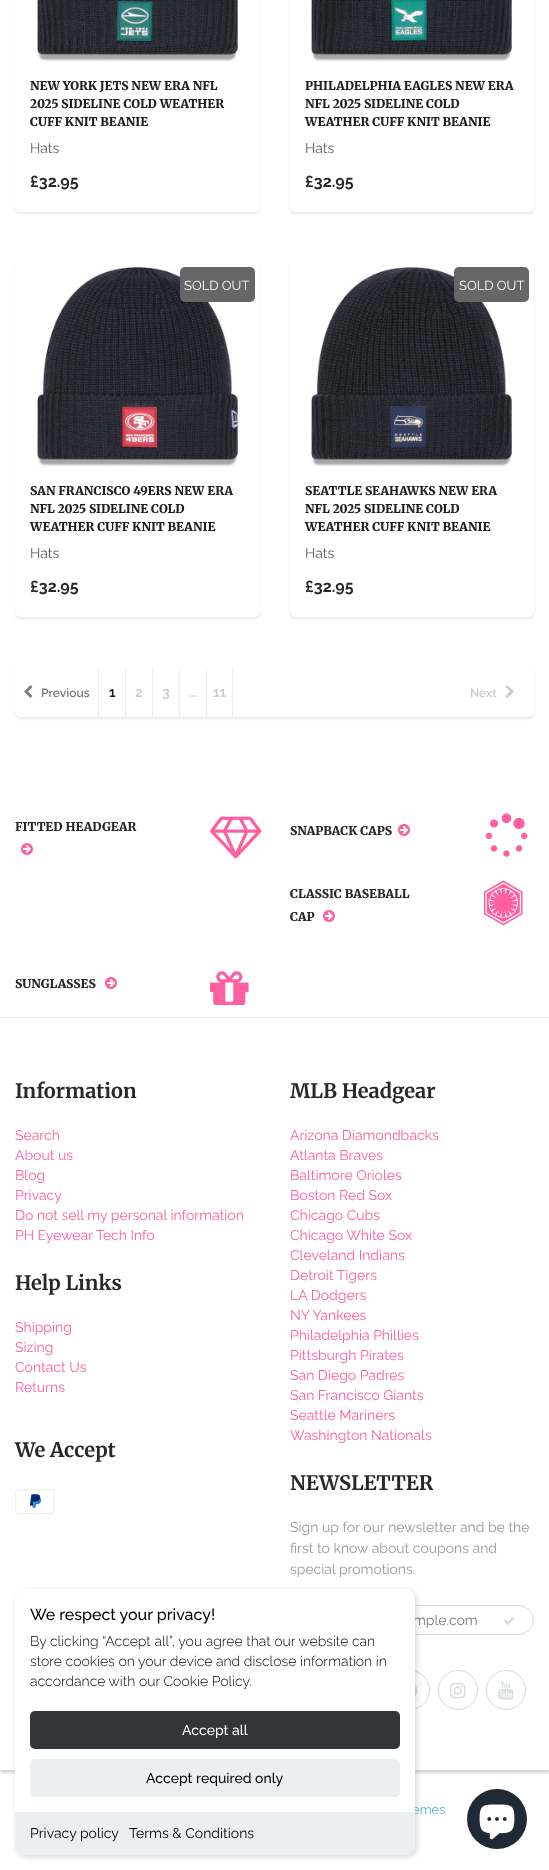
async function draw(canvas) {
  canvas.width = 549
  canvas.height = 1870
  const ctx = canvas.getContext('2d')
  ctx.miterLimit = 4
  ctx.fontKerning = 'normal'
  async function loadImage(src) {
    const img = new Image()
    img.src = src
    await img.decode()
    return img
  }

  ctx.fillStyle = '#fff'
  ctx.fillRect(0, 0, 549, 1870)
  ctx.fillStyle = '#0b191c1a'
  ctx.filter = 'blur(1px)'
  ctx.beginPath()
  ctx.roundRect(15, -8, 245, 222, 5)
  ctx.fill()
  ctx.filter = 'none'
  ctx.fillStyle = '#fff'
  ctx.beginPath()
  ctx.roundRect(17.5, -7.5, 240, 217, 2.5)
  ctx.fill()
  ctx.strokeStyle = '#fff'
  ctx.lineWidth = 5
  ctx.stroke()
  ctx.drawImage(await loadImage('image0.png'), 37, 0, 201, 62)
  ctx.font = '900 12px Merriweather'
  ctx.fillStyle = '#1e1f1f'
  ctx.fillText('NEW YORK JETS NEW ERA NFL', 30, 90)
  ctx.fillText('2025 SIDELINE COLD WEATHER', 30, 108)
  ctx.fillText('CUFF KNIT BEANIE', 30, 126)
  ctx.font = '14px Raleway'
  ctx.fillStyle = '#5f5a5a'
  ctx.fillText('Hats', 30, 153)
  ctx.font = 'bold 16px Raleway'
  ctx.fillStyle = '#282827'
  ctx.fillText('£32.95', 30, 187)
  ctx.fillStyle = '#0b191c1a'
  ctx.filter = 'blur(1px)'
  ctx.beginPath()
  ctx.roundRect(290, -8, 244, 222, 5)
  ctx.fill()
  ctx.filter = 'none'
  ctx.fillStyle = '#fff'
  ctx.beginPath()
  ctx.roundRect(292.5, -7.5, 239, 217, 2.5)
  ctx.fill()
  ctx.stroke()
  ctx.drawImage(await loadImage('image1.png'), 311, 0, 201, 62)
  ctx.font = '900 12px Merriweather'
  ctx.fillStyle = '#1e1f1f'
  ctx.fillText('PHILADELPHIA EAGLES NEW ERA', 305, 90)
  ctx.fillText('NFL 2025 SIDELINE COLD', 305, 108)
  ctx.fillText('WEATHER CUFF KNIT BEANIE', 305, 126)
  ctx.font = '14px Raleway'
  ctx.fillStyle = '#5f5a5a'
  ctx.fillText('Hats', 305, 153)
  ctx.font = 'bold 16px Raleway'
  ctx.fillStyle = '#282827'
  ctx.fillText('£32.95', 305, 187)
  ctx.fillStyle = '#0b191c1a'
  ctx.filter = 'blur(1px)'
  ctx.beginPath()
  ctx.roundRect(15, 264, 245, 355, 5)
  ctx.fill()
  ctx.filter = 'none'
  ctx.fillStyle = '#fff'
  ctx.beginPath()
  ctx.roundRect(17.5, 264.5, 240, 350, 2.5)
  ctx.fill()
  ctx.stroke()
  ctx.drawImage(await loadImage('image2.png'), 37, 267, 201, 200)
  ctx.fillStyle = '#666'
  ctx.beginPath()
  ctx.roundRect(180, 267, 75, 35, 5)
  ctx.fill()
  ctx.font = '13px Raleway'
  ctx.fillStyle = '#fff'
  ctx.fillText('SOLD OUT', 184, 290)
  ctx.font = '900 12px Merriweather'
  ctx.fillStyle = '#1e1f1f'
  ctx.fillText('SAN FRANCISCO 49ERS NEW ERA', 30, 495)
  ctx.fillText('NFL 2025 SIDELINE COLD', 30, 513)
  ctx.fillText('WEATHER CUFF KNIT BEANIE', 30, 531)
  ctx.font = '14px Raleway'
  ctx.fillStyle = '#5f5a5a'
  ctx.fillText('Hats', 30, 558)
  ctx.font = 'bold 16px Raleway'
  ctx.fillStyle = '#282827'
  ctx.fillText('£32.95', 30, 592)
  ctx.fillStyle = '#0b191c1a'
  ctx.filter = 'blur(1px)'
  ctx.beginPath()
  ctx.roundRect(290, 264, 244, 355, 5)
  ctx.fill()
  ctx.filter = 'none'
  ctx.fillStyle = '#fff'
  ctx.beginPath()
  ctx.roundRect(292.5, 264.5, 239, 350, 2.5)
  ctx.fill()
  ctx.stroke()
  ctx.drawImage(await loadImage('image3.png'), 311, 267, 201, 200)
  ctx.fillStyle = '#666'
  ctx.beginPath()
  ctx.roundRect(454, 267, 75, 35, 5)
  ctx.fill()
  ctx.font = '13px Raleway'
  ctx.fillStyle = '#fff'
  ctx.fillText('SOLD OUT', 459, 290)
  ctx.font = '900 12px Merriweather'
  ctx.fillStyle = '#1e1f1f'
  ctx.fillText('SEATTLE SEAHAWKS NEW ERA', 305, 495)
  ctx.fillText('NFL 2025 SIDELINE COLD', 305, 513)
  ctx.fillText('WEATHER CUFF KNIT BEANIE', 305, 531)
  ctx.font = '14px Raleway'
  ctx.fillStyle = '#5f5a5a'
  ctx.fillText('Hats', 305, 558)
  ctx.font = 'bold 16px Raleway'
  ctx.fillStyle = '#282827'
  ctx.fillText('£32.95', 305, 592)
  ctx.fillStyle = '#0b191c1a'
  ctx.filter = 'blur(1px)'
  ctx.beginPath()
  ctx.roundRect(15, 669, 519, 50, 5)
  ctx.fill()
  ctx.filter = 'none'
  ctx.fillStyle = '#fff'
  ctx.beginPath()
  ctx.roundRect(15, 667, 519, 50, 5)
  ctx.fill()
  ctx.drawImage(await loadImage('image4.png'), 24, 685, 9, 13)
  ctx.font = '600 12px Raleway'
  ctx.fillStyle = '#7a7a7a'
  ctx.fillText('Previous', 41, 697)
  ctx.fillStyle = '#efefef'
  ctx.fillRect(98, 667, 1, 50)
  ctx.font = '600 14px Raleway'
  ctx.fillStyle = '#1e1f1f'
  ctx.fillText('1', 109, 697)
  ctx.fillStyle = '#efefef'
  ctx.fillRect(125, 667, 1, 50)
  ctx.fillStyle = '#cacaca'
  ctx.fillText('2', 135, 697)
  ctx.fillStyle = '#efefef'
  ctx.fillRect(152, 667, 1, 50)
  ctx.fillStyle = '#cacaca'
  ctx.fillText('3', 162, 697)
  ctx.fillStyle = '#efefef'
  ctx.fillRect(179, 667, 1, 50)
  ctx.fillStyle = '#cacaca'
  ctx.fillText('…', 189, 697)
  ctx.fillStyle = '#efefef'
  ctx.fillRect(232, 667, 1, 50)
  ctx.fillRect(206, 667, 1, 50)
  ctx.fillStyle = '#cacaca'
  ctx.fillText('11', 213, 697)
  ctx.font = '600 12px Raleway'
  ctx.fillText('Next', 470, 697)
  ctx.drawImage(await loadImage('image5.png'), 505, 685, 9, 13)
  ctx.font = '900 12px Merriweather'
  ctx.fillStyle = '#282827'
  ctx.fillText('FITTED HEADGEAR', 15, 831)
  ctx.drawImage(await loadImage('image6.png'), 21, 843, 12, 12)
  ctx.drawImage(await loadImage('image7.png'), 210, 816, 52, 43)
  ctx.fillText('SNAPBACK CAPS', 290, 835)
  ctx.drawImage(await loadImage('image6.png'), 398, 824, 12, 12)
  ctx.drawImage(await loadImage('image8.png'), 485, 813, 43, 44)
  ctx.fillText('CLASSIC BASEBALL', 290, 898)
  ctx.fillText('CAP', 290, 921)
  ctx.drawImage(await loadImage('image6.png'), 323, 910, 12, 12)
  ctx.drawImage(await loadImage('image9.png'), 484, 880, 39, 46)
  ctx.fillText('SUNGLASSES', 15, 988)
  ctx.drawImage(await loadImage('image6.png'), 105, 977, 12, 12)
  ctx.drawImage(await loadImage('image10.png'), 210, 971, 39, 34)
  ctx.save()
  ctx.beginPath()
  ctx.rect(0, 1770, 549, 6)
  ctx.clip()
  ctx.fillStyle = '#d1d7d7'
  ctx.filter = 'blur(1.5px)'
  ctx.beginPath()
  ctx.rect(0, 1020, 549, 753)
  ctx.fill()
  ctx.filter = 'none'
  ctx.restore()
  ctx.fillStyle = '#ecefef'
  ctx.fillRect(0, 1017, 549, 1)
  ctx.font = 'bold 20px Merriweather'
  ctx.fillStyle = '#282827'
  ctx.fillText('Information', 15, 1098)
  ctx.font = '14px Raleway'
  ctx.fillStyle = '#ff5e9f'
  ctx.fillText('Search', 15, 1140)
  ctx.fillText('About us', 15, 1160)
  ctx.fillText('Blog', 15, 1180)
  ctx.fillText('Privacy', 15, 1200)
  ctx.fillText('Do not sell my personal information', 15, 1220)
  ctx.fillText('PH Eyewear Tech Info', 15, 1240)
  ctx.font = 'bold 20px Merriweather'
  ctx.fillStyle = '#282827'
  ctx.fillText('Help Links', 15, 1290)
  ctx.font = '14px Raleway'
  ctx.fillStyle = '#ff5e9f'
  ctx.fillText('Shipping', 15, 1332)
  ctx.fillText('Sizing', 15, 1352)
  ctx.fillText('Contact Us', 15, 1372)
  ctx.fillText('Returns', 15, 1392)
  ctx.font = 'bold 20px Merriweather'
  ctx.fillStyle = '#282827'
  ctx.fillText('We Accept', 15, 1457)
  ctx.drawImage(await loadImage('image11.png'), 15, 1489, 40, 25)
  ctx.fillText('MLB Headgear', 290, 1098)
  ctx.font = '14px Raleway'
  ctx.fillStyle = '#ff5e9f'
  ctx.fillText('Arizona Diamondbacks', 290, 1140)
  ctx.fillText('Atlanta Braves', 290, 1160)
  ctx.fillText('Baltimore Orioles', 290, 1180)
  ctx.fillText('Boston Red Sox', 290, 1200)
  ctx.fillText('Chicago Cubs', 290, 1220)
  ctx.fillText('Chicago White Sox', 290, 1240)
  ctx.fillText('Cleveland Indians', 290, 1260)
  ctx.fillText('Detroit Tigers', 290, 1280)
  ctx.fillText('LA Dodgers', 290, 1300)
  ctx.fillText('NY Yankees', 290, 1320)
  ctx.fillText('Philadelphia Phillies', 290, 1340)
  ctx.fillText('Pittsburgh Pirates', 290, 1360)
  ctx.fillText('San Diego Padres', 290, 1380)
  ctx.fillText('San Francisco Giants', 290, 1400)
  ctx.fillText('Seattle Mariners', 290, 1420)
  ctx.fillText('Washington Nationals', 290, 1440)
  ctx.font = 'bold 20px Merriweather'
  ctx.fillStyle = '#282827'
  ctx.fillText('NEWSLETTER', 290, 1490)
  ctx.font = '14px Raleway'
  ctx.fillStyle = '#9a9a9a'
  ctx.fillText('Sign up for our newsletter and be the', 290, 1532)
  ctx.fillText('first to know about coupons and', 290, 1553)
  ctx.fillText('special promotions.', 290, 1574)
  ctx.beginPath()
  ctx.roundRect(290.5, 1605.5, 243, 29, 14.5)
  ctx.strokeStyle = '#d7dbdb'
  ctx.lineWidth = 1
  ctx.stroke()
  ctx.fillStyle = '#7a7a7a'
  ctx.fillText('mple.com', 413, 1625)
  ctx.drawImage(await loadImage('image12.png'), 504, 1617, 10, 8)
  ctx.beginPath()
  ctx.arc(410, 1690, 19.5, 0, 2 * Math.PI)
  ctx.stroke()
  ctx.drawImage(await loadImage('image13.png'), 415, 1685, 3, 11)
  ctx.beginPath()
  ctx.arc(458, 1690, 19.5, 0, 2 * Math.PI)
  ctx.stroke()
  ctx.drawImage(await loadImage('image14.png'), 450, 1682, 16, 17)
  ctx.beginPath()
  ctx.arc(506, 1690, 19.5, 0, 2 * Math.PI)
  ctx.stroke()
  ctx.drawImage(await loadImage('image15.png'), 498, 1681, 16, 19)
  ctx.font = '13px Raleway'
  ctx.fillStyle = '#53b9d6'
  ctx.fillText('emes', 412, 1814)
  ctx.fillStyle = '#00000026'
  ctx.filter = 'blur(3px)'
  ctx.beginPath()
  ctx.roundRect(17, 1591, 400, 266, 10)
  ctx.fill()
  ctx.filter = 'none'
  ctx.fillStyle = '#fff'
  ctx.beginPath()
  ctx.roundRect(15, 1589, 400, 266, 10)
  ctx.fill()
  ctx.font = '500 16px Raleway'
  ctx.fillStyle = '#000'
  ctx.fillText('We respect your privacy!', 30, 1620)
  ctx.font = '300 14px Raleway'
  ctx.fillText('By clicking “Accept all”, you agree that our website can', 30, 1646)
  ctx.fillText('store cookies on your device and disclose information in', 30, 1666)
  ctx.fillText('accordance with our Cookie Policy.', 30, 1686)
  ctx.fillStyle = '#30363c'
  ctx.beginPath()
  ctx.roundRect(30, 1711, 370, 38, 5)
  ctx.fill()
  ctx.font = '500 14px Raleway'
  ctx.fillStyle = '#fff'
  ctx.fillText('Accept all', 182, 1735)
  ctx.fillStyle = '#eaeff2'
  ctx.beginPath()
  ctx.roundRect(30, 1759, 370, 38, 5)
  ctx.fill()
  ctx.fillStyle = '#000'
  ctx.fillText('Accept required only', 146, 1783)
  ctx.fillStyle = '#eaeff2'
  ctx.beginPath()
  ctx.roundRect(15, 1812, 400, 43, [0, 0, 10, 10])
  ctx.fill()
  ctx.fillStyle = '#eee'
  ctx.fillRect(15, 1812, 400, 1)
  ctx.save()
  ctx.beginPath()
  ctx.roundRect(15, 1589, 400, 266, 10)
  ctx.clip()
  ctx.fillRect(15, 1854, 400, 1)
  ctx.restore()
  ctx.font = '14px Raleway'
  ctx.fillStyle = '#000'
  ctx.fillText('Privacy policy', 30, 1838)
  ctx.fillText('Terms & Conditions', 129, 1838)
  ctx.fillStyle = '#202a36'
  ctx.beginPath()
  ctx.arc(497, 1819, 30, 0, 2 * Math.PI)
  ctx.fill()
  ctx.drawImage(await loadImage('image16.png'), 479, 1804, 36, 36)
}

draw(document.querySelector('canvas'))
